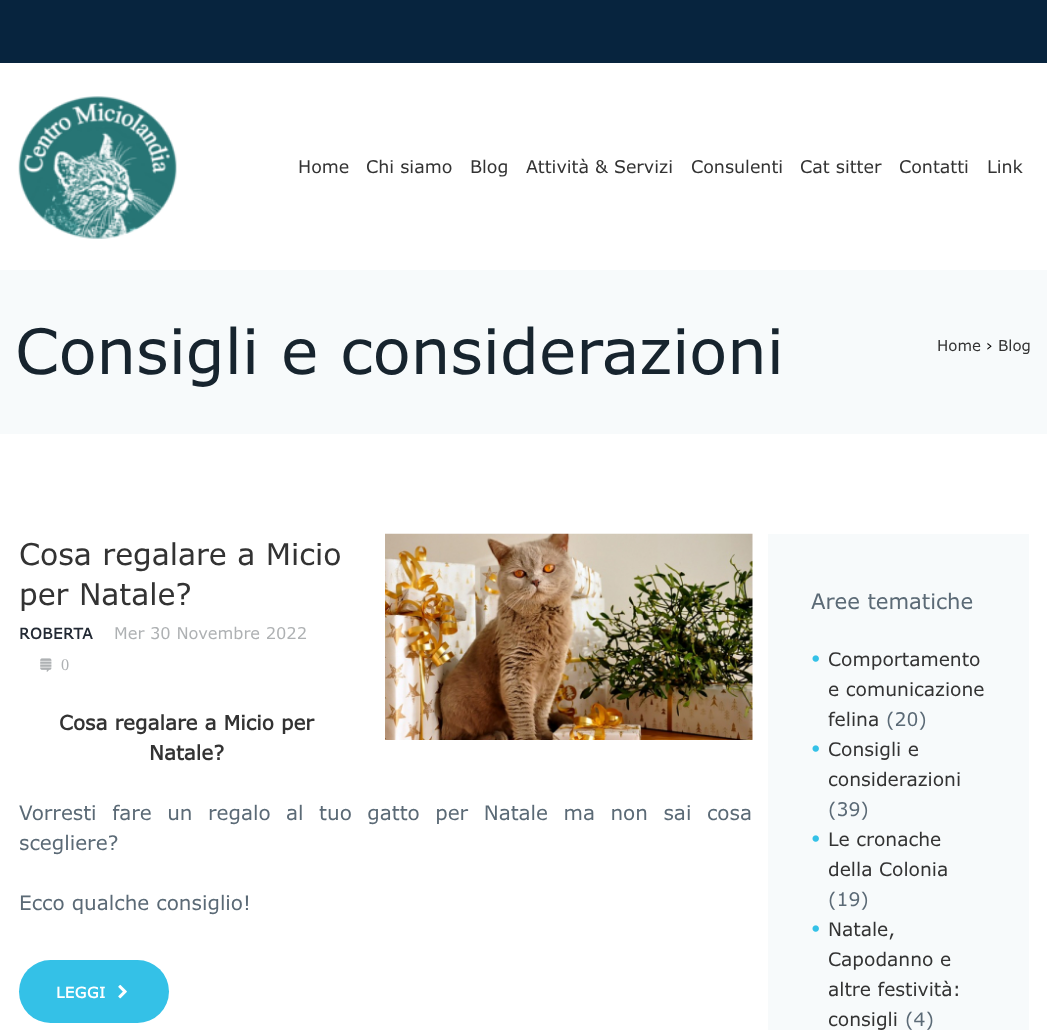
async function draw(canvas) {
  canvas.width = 1047
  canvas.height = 1030
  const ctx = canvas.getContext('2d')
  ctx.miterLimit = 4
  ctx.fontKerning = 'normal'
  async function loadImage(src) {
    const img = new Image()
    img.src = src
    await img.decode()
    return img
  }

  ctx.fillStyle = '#fff'
  ctx.fillRect(0, 0, 1047, 1030)
  ctx.fillStyle = '#07243e'
  ctx.fillRect(0, 0, 1047, 63)
  ctx.drawImage(await loadImage('image0.png'), 18, 96, 159, 143)
  ctx.font = '17.5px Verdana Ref'
  ctx.fillStyle = '#333'
  ctx.fillText('Home', 298, 173)
  ctx.fillText('Chi siamo', 366, 173)
  ctx.fillText('Blog', 470, 173)
  ctx.fillText('Attività & Servizi', 526, 173)
  ctx.fillText('Consulenti', 691, 173)
  ctx.fillText('Cat sitter', 800, 173)
  ctx.fillText('Contatti', 899, 173)
  ctx.fillText('Link', 987, 173)
  ctx.fillStyle = '#f7fafb'
  ctx.fillRect(0, 270, 1047, 164)
  ctx.font = '62.5px Verdana Ref'
  ctx.fillStyle = '#17242e'
  ctx.fillText('Consigli e considerazioni', 15, 374)
  ctx.font = '15px Verdana Ref'
  ctx.fillStyle = '#333'
  ctx.fillText('Home', 937, 351)
  ctx.fillStyle = '#000'
  ctx.fillText('›', 986, 351)
  ctx.fillStyle = '#333'
  ctx.fillText('Blog', 998, 351)
  ctx.drawImage(await loadImage('image1.png'), 385, 533, 368, 207)
  ctx.font = '30px Verdana Ref'
  ctx.fillText('Cosa regalare a Micio', 19, 565)
  ctx.fillText('per Natale?', 19, 605)
  ctx.letterSpacing = '0.5px'
  ctx.font = 'bold 15px Verdana Ref'
  ctx.fillStyle = '#232a34'
  ctx.fillText('ROBERTA', 19, 639)
  ctx.letterSpacing = '0px'
  ctx.font = '16.25px Verdana Ref'
  ctx.fillStyle = '#aeb1b3'
  ctx.fillText('Mer 30 Novembre 2022', 114, 639)
  ctx.drawImage(await loadImage('image2.png'), 40, 658, 12, 14)
  ctx.font = '16.25px Liberation Serif'
  ctx.fillText('0', 61, 670)
  ctx.font = 'bold 20px Verdana Ref'
  ctx.fillStyle = '#333'
  ctx.fillText('Cosa regalare a Micio per', 59, 730)
  ctx.fillText('Natale?', 149, 760)
  ctx.wordSpacing = '8.5px'
  ctx.font = '20px Verdana Ref'
  ctx.fillStyle = '#5b6a76'
  ctx.fillText('Vorresti fare un regalo al tuo gatto per Natale ma non sai cosa', 19, 820)
  ctx.wordSpacing = '0px'
  ctx.fillText('scegliere?', 19, 850)
  ctx.fillText('Ecco qualche consiglio!', 19, 910)
  ctx.fillStyle = '#34c1e7'
  ctx.beginPath()
  ctx.roundRect(19, 960, 150, 63, 31.5)
  ctx.fill()
  ctx.letterSpacing = '0.5px'
  ctx.font = 'bold 15px Verdana Ref'
  ctx.fillStyle = '#fff'
  ctx.fillText('LEGGI', 56, 998)
  ctx.drawImage(await loadImage('image3.png'), 118, 984, 9, 15)
  ctx.fillStyle = '#f7fafb'
  ctx.fillRect(768, 534, 261, 496)
  ctx.letterSpacing = '0px'
  ctx.font = '21.25px Verdana Ref'
  ctx.fillStyle = '#5b6a76'
  ctx.fillText('Aree tematiche', 811, 609)
  ctx.drawImage(await loadImage('image4.png'), 812, 655, 7, 7)
  ctx.font = '18.75px Verdana Ref'
  ctx.fillStyle = '#333'
  ctx.fillText('Comportamento', 828, 666)
  ctx.fillText('e comunicazione', 828, 696)
  ctx.fillText('felina', 828, 726)
  ctx.fillStyle = '#5b6a76'
  ctx.fillText('(20)', 886, 726)
  ctx.drawImage(await loadImage('image4.png'), 812, 745, 7, 7)
  ctx.fillStyle = '#333'
  ctx.fillText('Consigli e', 828, 756)
  ctx.fillText('considerazioni', 828, 786)
  ctx.fillStyle = '#5b6a76'
  ctx.fillText('(39)', 828, 816)
  ctx.drawImage(await loadImage('image4.png'), 812, 835, 7, 7)
  ctx.fillStyle = '#333'
  ctx.fillText('Le cronache', 828, 846)
  ctx.fillText('della Colonia', 828, 876)
  ctx.fillStyle = '#5b6a76'
  ctx.fillText('(19)', 828, 906)
  ctx.drawImage(await loadImage('image4.png'), 812, 925, 7, 7)
  ctx.fillStyle = '#333'
  ctx.fillText('Natale,', 828, 936)
  ctx.fillText('Capodanno e', 828, 966)
  ctx.fillText('altre festività:', 828, 996)
  ctx.fillText('consigli', 828, 1026)
  ctx.fillStyle = '#5b6a76'
  ctx.fillText('(4)', 905, 1026)
}

draw(document.querySelector('canvas'))
